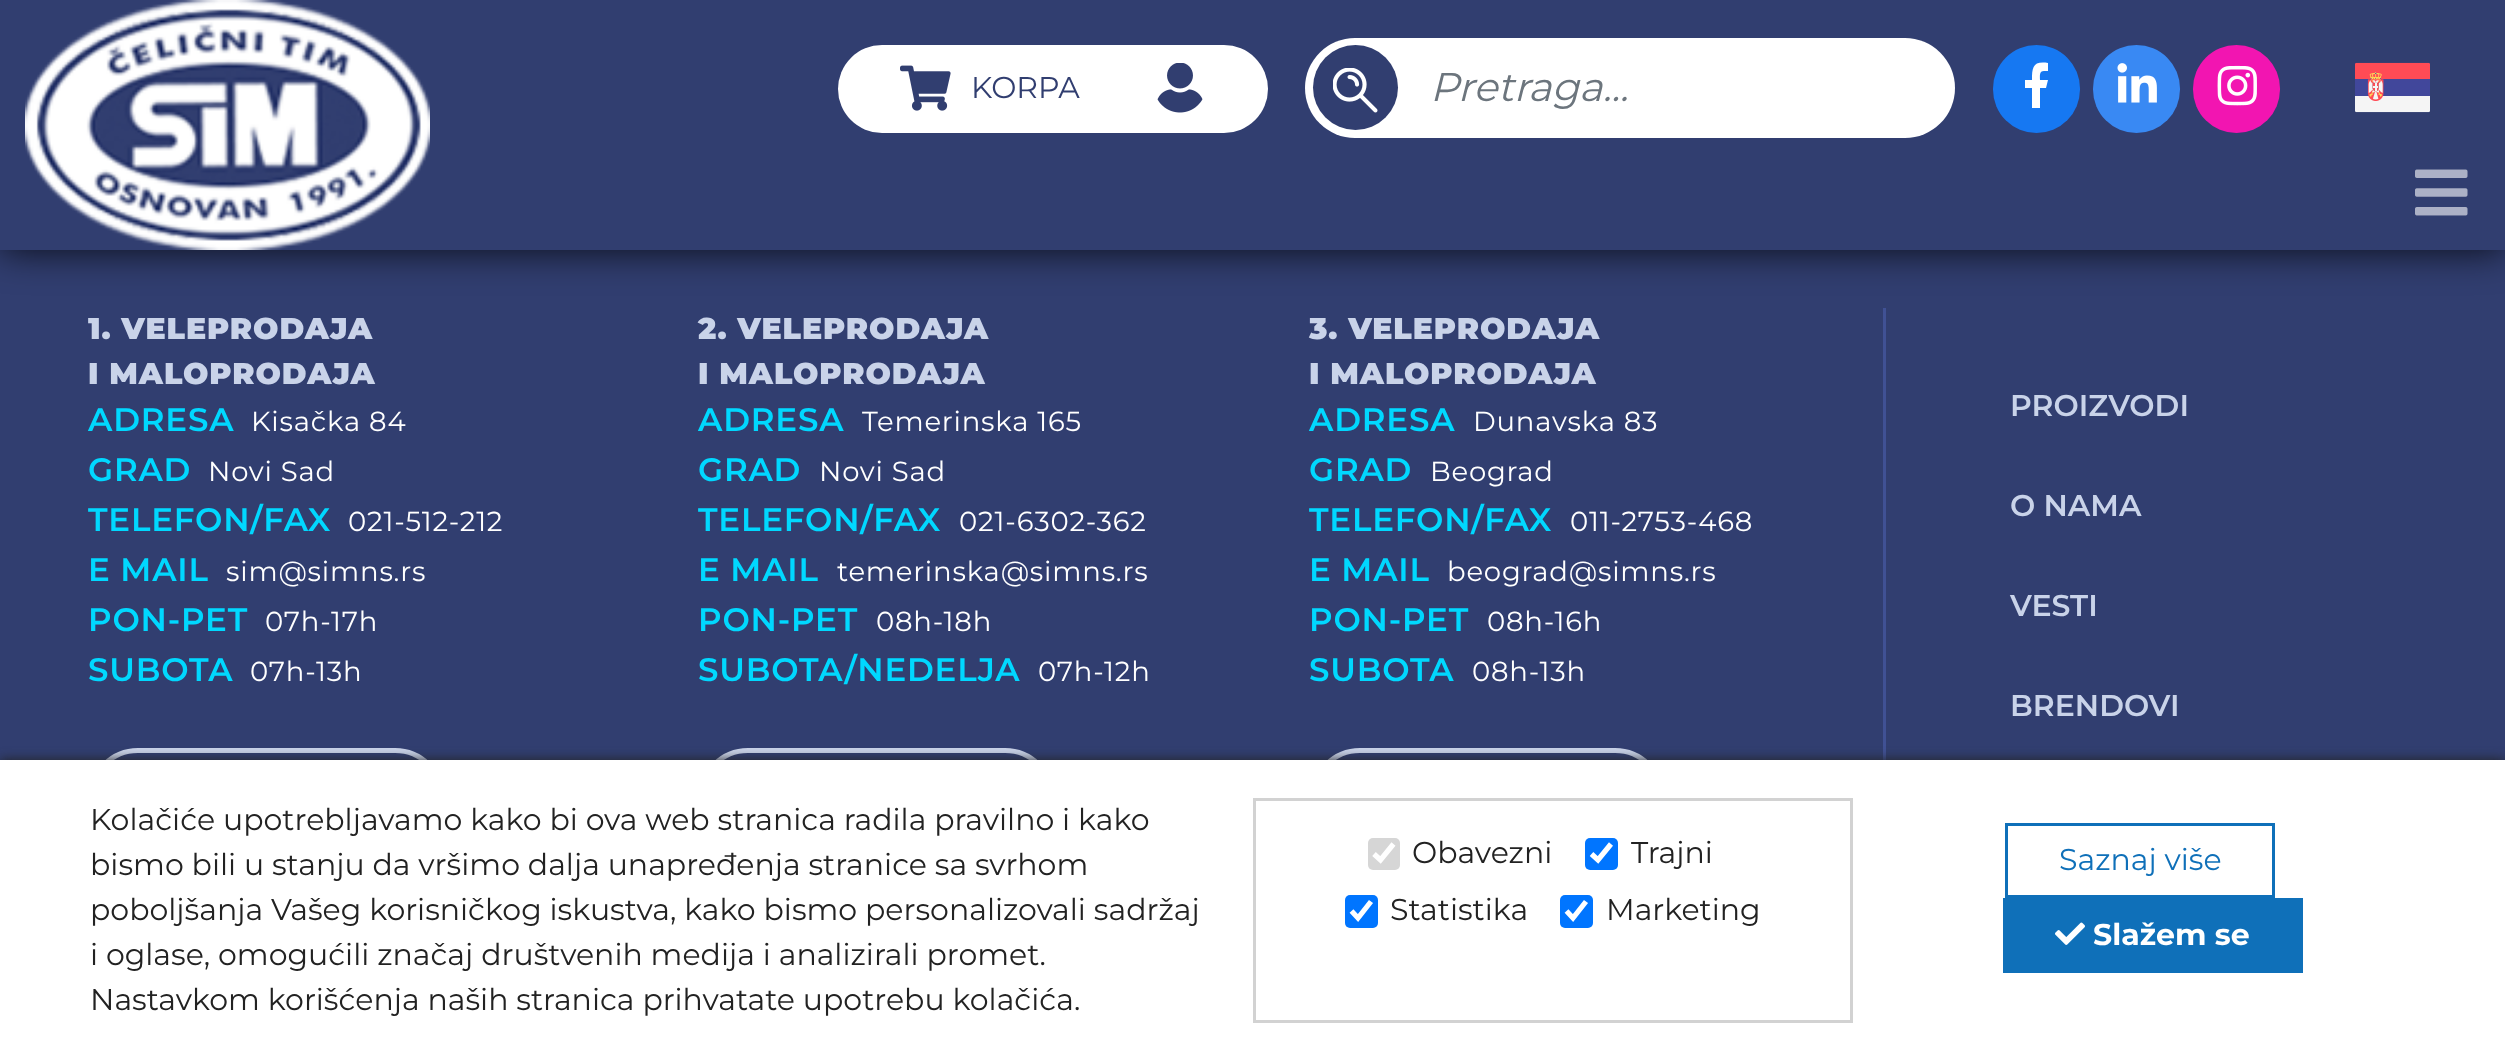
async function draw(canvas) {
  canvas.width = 2505
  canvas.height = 1059
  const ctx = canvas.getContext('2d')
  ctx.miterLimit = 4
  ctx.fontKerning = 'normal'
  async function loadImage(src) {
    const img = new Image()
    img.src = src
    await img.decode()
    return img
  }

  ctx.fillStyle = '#313e70'
  ctx.fillRect(0, 0, 2505, 1059)
  ctx.fillStyle = '#000000d1'
  ctx.filter = 'blur(19px)'
  ctx.beginPath()
  ctx.rect(0, 0, 2505, 250)
  ctx.fill()
  ctx.filter = 'none'
  ctx.fillStyle = '#313e70'
  ctx.fillRect(0, 0, 2505, 250)
  ctx.drawImage(await loadImage('image0.png'), 25, 0, 405, 250)
  ctx.fillStyle = '#fff'
  ctx.beginPath()
  ctx.roundRect(838, 45, 280, 88, [44, 0, 0, 44])
  ctx.fill()
  ctx.drawImage(await loadImage('image1.png'), 900, 65, 51, 46)
  ctx.font = '30px Montserrat'
  ctx.fillStyle = '#313e70'
  ctx.fillText('KORPA', 971, 98)
  ctx.fillStyle = '#fff'
  ctx.beginPath()
  ctx.roundRect(1118, 45, 150, 88, [0, 44, 44, 0])
  ctx.fill()
  ctx.drawImage(await loadImage('image2.png'), 1157, 63, 46, 50)
  ctx.beginPath()
  ctx.roundRect(1305, 38, 650, 100, 50)
  ctx.fill()
  ctx.fillStyle = '#313e70'
  ctx.beginPath()
  ctx.arc(1355.5, 87.5, 42.5, 0, 2 * Math.PI)
  ctx.fill()
  ctx.drawImage(await loadImage('image3.png'), 1333, 68, 45, 45)
  ctx.font = 'italic 40px Montserrat'
  ctx.fillStyle = '#6c757d'
  ctx.fillText('Pretraga...', 1430, 101)
  ctx.fillStyle = '#1678f2'
  ctx.beginPath()
  ctx.roundRect(1993, 45, 87, 88, 43.5)
  ctx.fill()
  ctx.fillStyle = '#fff'
  ctx.beginPath()
  ctx.moveTo(2044, 71)
  ctx.bezierCurveTo(2039, 71, 2040, 76, 2040, 80)
  ctx.lineTo(2048, 80)
  ctx.lineTo(2046, 88)
  ctx.lineTo(2040, 88)
  ctx.lineTo(2040, 108)
  ctx.lineTo(2032, 108)
  ctx.lineTo(2032, 88)
  ctx.lineTo(2025, 88)
  ctx.lineTo(2025, 80)
  ctx.lineTo(2032, 80)
  ctx.bezierCurveTo(2032, 67, 2033, 61, 2048, 63)
  ctx.lineTo(2048, 71)
  ctx.closePath()
  ctx.fill()
  ctx.fillStyle = '#3989f3'
  ctx.beginPath()
  ctx.roundRect(2093, 45, 87, 88, 43.5)
  ctx.fill()
  ctx.drawImage(await loadImage('image4.png'), 2117, 63, 40, 40)
  ctx.fillStyle = '#f215b1'
  ctx.beginPath()
  ctx.roundRect(2193, 45, 87, 88, 43.5)
  ctx.fill()
  ctx.drawImage(await loadImage('image5.png'), 2217, 65, 40, 41)
  ctx.drawImage(await loadImage('image6.png'), 2355, 62, 75, 51)
  ctx.drawImage(await loadImage('image7.png'), 2415, 169, 53, 47)
  ctx.fillStyle = '#405194'
  ctx.fillRect(1883, 308, 3, 452)
  ctx.letterSpacing = '0.9px'
  ctx.font = '900 30px Montserrat'
  ctx.fillStyle = '#c9d3e9'
  ctx.fillText('1. VELEPRODAJA', 88, 339)
  ctx.fillText('I MALOPRODAJA', 88, 384)
  ctx.letterSpacing = '0.8px'
  ctx.font = '600 32.5px Montserrat'
  ctx.fillStyle = '#00d8ff'
  ctx.fillText('ADRESA', 88, 431)
  ctx.font = '27.5px Montserrat'
  ctx.fillStyle = '#fff'
  ctx.fillText('Kisačka 84', 251, 431)
  ctx.font = '600 32.5px Montserrat'
  ctx.fillStyle = '#00d8ff'
  ctx.fillText('GRAD', 88, 481)
  ctx.font = '27.5px Montserrat'
  ctx.fillStyle = '#fff'
  ctx.fillText('Novi Sad', 208, 481)
  ctx.font = '600 32.5px Montserrat'
  ctx.fillStyle = '#00d8ff'
  ctx.fillText('TELEFON/FAX', 88, 531)
  ctx.font = '27.5px Montserrat'
  ctx.fillStyle = '#fff'
  ctx.fillText('021-512-212', 348, 531)
  ctx.font = '600 32.5px Montserrat'
  ctx.fillStyle = '#00d8ff'
  ctx.fillText('E MAIL', 88, 581)
  ctx.font = '27.5px Montserrat'
  ctx.fillStyle = '#fff'
  ctx.fillText('sim@simns.rs', 226, 581)
  ctx.font = '600 32.5px Montserrat'
  ctx.fillStyle = '#00d8ff'
  ctx.fillText('PON-PET', 88, 631)
  ctx.font = '27.5px Montserrat'
  ctx.fillStyle = '#fff'
  ctx.fillText('07h-17h', 265, 631)
  ctx.font = '600 32.5px Montserrat'
  ctx.fillStyle = '#00d8ff'
  ctx.fillText('SUBOTA', 88, 681)
  ctx.font = '27.5px Montserrat'
  ctx.fillStyle = '#fff'
  ctx.fillText('07h-13h', 250, 681)
  ctx.beginPath()
  ctx.roundRect(90.5, 750.5, 352, 95, 47.5)
  ctx.strokeStyle = '#c9d3e9'
  ctx.lineWidth = 5
  ctx.stroke()
  ctx.letterSpacing = '0.9px'
  ctx.font = '900 30px Montserrat'
  ctx.fillStyle = '#c9d3e9'
  ctx.fillText('2. VELEPRODAJA', 698, 339)
  ctx.fillText('I MALOPRODAJA', 698, 384)
  ctx.letterSpacing = '0.8px'
  ctx.font = '600 32.5px Montserrat'
  ctx.fillStyle = '#00d8ff'
  ctx.fillText('ADRESA', 698, 431)
  ctx.font = '27.5px Montserrat'
  ctx.fillStyle = '#fff'
  ctx.fillText('Temerinska 165', 862, 431)
  ctx.font = '600 32.5px Montserrat'
  ctx.fillStyle = '#00d8ff'
  ctx.fillText('GRAD', 698, 481)
  ctx.font = '27.5px Montserrat'
  ctx.fillStyle = '#fff'
  ctx.fillText('Novi Sad', 819, 481)
  ctx.font = '600 32.5px Montserrat'
  ctx.fillStyle = '#00d8ff'
  ctx.fillText('TELEFON/FAX', 698, 531)
  ctx.font = '27.5px Montserrat'
  ctx.fillStyle = '#fff'
  ctx.fillText('021-6302-362', 959, 531)
  ctx.font = '600 32.5px Montserrat'
  ctx.fillStyle = '#00d8ff'
  ctx.fillText('E MAIL', 698, 581)
  ctx.font = '27.5px Montserrat'
  ctx.fillStyle = '#fff'
  ctx.fillText('temerinska@simns.rs', 837, 581)
  ctx.font = '600 32.5px Montserrat'
  ctx.fillStyle = '#00d8ff'
  ctx.fillText('PON-PET', 698, 631)
  ctx.font = '27.5px Montserrat'
  ctx.fillStyle = '#fff'
  ctx.fillText('08h-18h', 876, 631)
  ctx.font = '600 32.5px Montserrat'
  ctx.fillStyle = '#00d8ff'
  ctx.fillText('SUBOTA/NEDELJA', 698, 681)
  ctx.font = '27.5px Montserrat'
  ctx.fillStyle = '#fff'
  ctx.fillText('07h-12h', 1038, 681)
  ctx.beginPath()
  ctx.roundRect(700.5, 750.5, 352, 95, 47.5)
  ctx.stroke()
  ctx.letterSpacing = '0.9px'
  ctx.font = '900 30px Montserrat'
  ctx.fillStyle = '#c9d3e9'
  ctx.fillText('3. VELEPRODAJA', 1309, 339)
  ctx.fillText('I MALOPRODAJA', 1309, 384)
  ctx.letterSpacing = '0.8px'
  ctx.font = '600 32.5px Montserrat'
  ctx.fillStyle = '#00d8ff'
  ctx.fillText('ADRESA', 1309, 431)
  ctx.font = '27.5px Montserrat'
  ctx.fillStyle = '#fff'
  ctx.fillText('Dunavska 83', 1473, 431)
  ctx.font = '600 32.5px Montserrat'
  ctx.fillStyle = '#00d8ff'
  ctx.fillText('GRAD', 1309, 481)
  ctx.font = '27.5px Montserrat'
  ctx.fillStyle = '#fff'
  ctx.fillText('Beograd', 1430, 481)
  ctx.font = '600 32.5px Montserrat'
  ctx.fillStyle = '#00d8ff'
  ctx.fillText('TELEFON/FAX', 1309, 531)
  ctx.font = '27.5px Montserrat'
  ctx.fillStyle = '#fff'
  ctx.fillText('011-2753-468', 1570, 531)
  ctx.font = '600 32.5px Montserrat'
  ctx.fillStyle = '#00d8ff'
  ctx.fillText('E MAIL', 1309, 581)
  ctx.font = '27.5px Montserrat'
  ctx.fillStyle = '#fff'
  ctx.fillText('beograd@simns.rs', 1447, 581)
  ctx.font = '600 32.5px Montserrat'
  ctx.fillStyle = '#00d8ff'
  ctx.fillText('PON-PET', 1309, 631)
  ctx.font = '27.5px Montserrat'
  ctx.fillStyle = '#fff'
  ctx.fillText('08h-16h', 1487, 631)
  ctx.font = '600 32.5px Montserrat'
  ctx.fillStyle = '#00d8ff'
  ctx.fillText('SUBOTA', 1309, 681)
  ctx.font = '27.5px Montserrat'
  ctx.fillStyle = '#fff'
  ctx.fillText('08h-13h', 1472, 681)
  ctx.beginPath()
  ctx.roundRect(1312.5, 750.5, 350, 95, 47.5)
  ctx.stroke()
  ctx.letterSpacing = '0px'
  ctx.font = '600 30px Montserrat'
  ctx.fillStyle = '#c9d3e9'
  ctx.fillText('PROIZVODI', 2010, 416)
  ctx.fillText('O NAMA', 2010, 516)
  ctx.fillText('VESTI', 2010, 616)
  ctx.fillText('BRENDOVI', 2010, 716)
  ctx.fillStyle = '#222'
  ctx.filter = 'blur(6px)'
  ctx.beginPath()
  ctx.rect(0, 760, 2505, 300)
  ctx.fill()
  ctx.filter = 'none'
  ctx.fillStyle = '#fff'
  ctx.fillRect(0, 760, 2505, 299)
  ctx.font = '30px Montserrat'
  ctx.fillStyle = '#222'
  ctx.fillText('Kolačiće upotrebljavamo kako bi ova web stranica radila pravilno i kako', 90, 830)
  ctx.fillText('bismo bili u stanju da vršimo dalja unapređenja stranice sa svrhom', 90, 875)
  ctx.fillText('poboljšanja Vašeg korisničkog iskustva, kako bismo personalizovali sadržaj', 90, 920)
  ctx.fillText('i oglase, omogućili značaj društvenih medija i analizirali promet.', 90, 965)
  ctx.fillText('Nastavkom korišćenja naših stranica prihvatate upotrebu kolačića.', 90, 1010)
  ctx.strokeStyle = '#d2d2d2'
  ctx.lineWidth = 3
  ctx.strokeRect(1254.5, 799.5, 597, 222)
  ctx.fillStyle = '#d6d6d6'
  ctx.beginPath()
  ctx.roundRect(1368, 838, 32, 32, 5)
  ctx.fill()
  ctx.beginPath()
  ctx.moveTo(1374, 854)
  ctx.lineTo(1380.5, 860)
  ctx.lineTo(1393.5, 844)
  ctx.strokeStyle = '#fff'
  ctx.lineWidth = 5.2
  ctx.stroke()
  ctx.fillStyle = '#222'
  ctx.fillText('Obavezni', 1412, 863)
  ctx.fillStyle = '#0075ff'
  ctx.beginPath()
  ctx.roundRect(1585, 838, 33, 32, 5)
  ctx.fill()
  ctx.beginPath()
  ctx.moveTo(1591.5, 854)
  ctx.lineTo(1598, 860)
  ctx.lineTo(1611, 844)
  ctx.stroke()
  ctx.fillStyle = '#222'
  ctx.fillText('Trajni', 1631, 863)
  ctx.fillStyle = '#0075ff'
  ctx.beginPath()
  ctx.roundRect(1345, 895, 33, 33, 5)
  ctx.fill()
  ctx.beginPath()
  ctx.moveTo(1351.5, 911)
  ctx.lineTo(1358, 918)
  ctx.lineTo(1371, 901.5)
  ctx.stroke()
  ctx.fillStyle = '#222'
  ctx.fillText('Statistika', 1390, 920)
  ctx.fillStyle = '#0075ff'
  ctx.beginPath()
  ctx.roundRect(1560, 895, 33, 33, 5)
  ctx.fill()
  ctx.beginPath()
  ctx.moveTo(1566.5, 911)
  ctx.lineTo(1573, 918)
  ctx.lineTo(1586, 901.5)
  ctx.stroke()
  ctx.fillStyle = '#222'
  ctx.fillText('Marketing', 1606, 920)
  ctx.strokeStyle = '#0f70b9'
  ctx.lineWidth = 3
  ctx.strokeRect(2006.5, 824.5, 267, 72)
  ctx.fillStyle = '#0f70b9'
  ctx.fillText('Saznaj više', 2059, 870)
  ctx.fillRect(2003, 898, 300, 75)
  ctx.drawImage(await loadImage('image8.png'), 2055, 922, 30, 23)
  ctx.font = 'bold 30px Montserrat'
  ctx.fillStyle = '#fff'
  ctx.fillText('Slažem se', 2093, 945)
}

draw(document.querySelector('canvas'))
